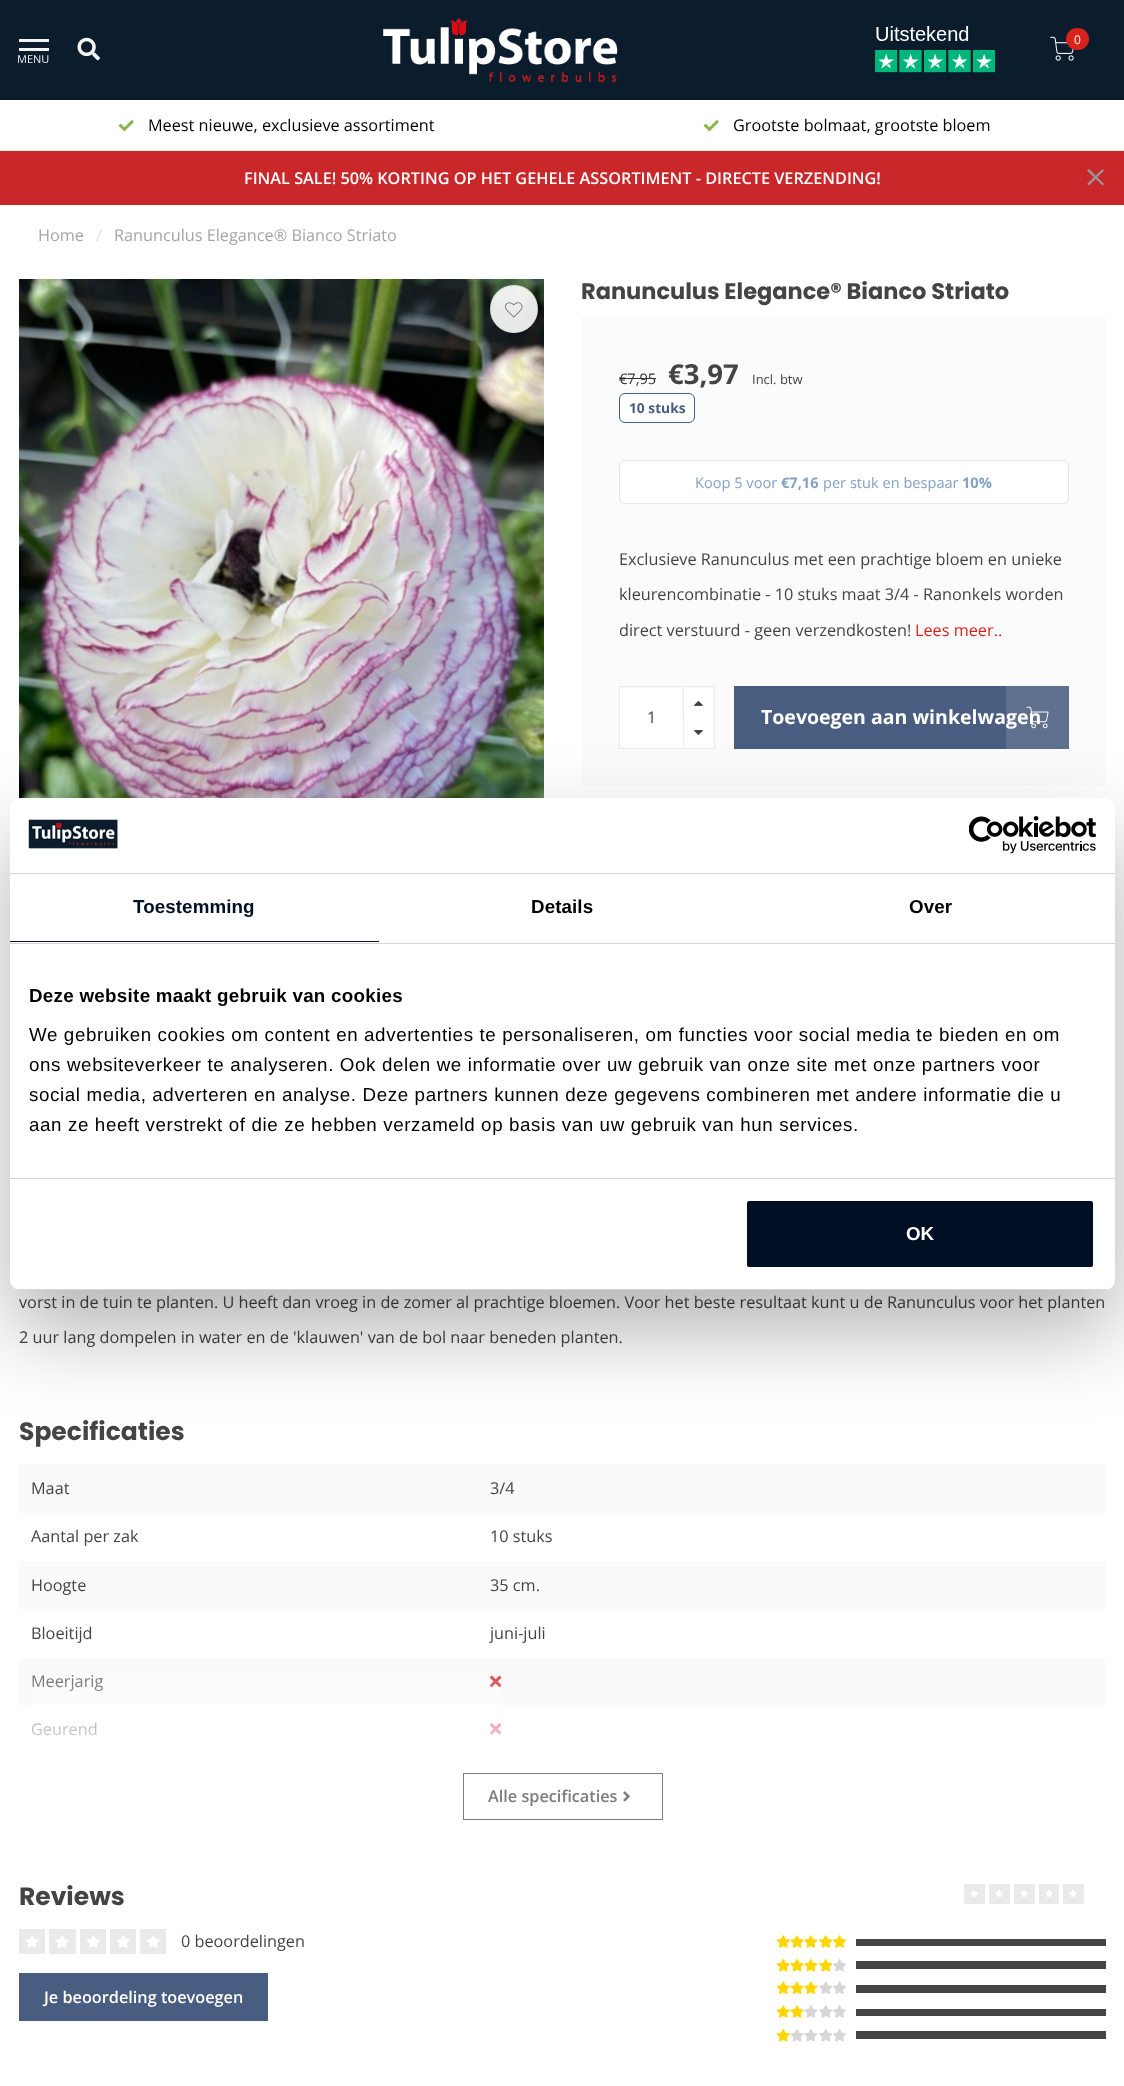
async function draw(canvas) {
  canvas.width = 1124
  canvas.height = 2086
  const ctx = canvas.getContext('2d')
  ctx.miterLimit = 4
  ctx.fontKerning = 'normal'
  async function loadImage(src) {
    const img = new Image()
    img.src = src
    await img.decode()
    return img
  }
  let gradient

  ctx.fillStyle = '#fff'
  ctx.fillRect(0, 0, 1124, 2086)
  ctx.fillStyle = '#0b1c2c'
  ctx.fillRect(0, 0, 1124, 100)
  ctx.drawImage(await loadImage('image0.png'), 383, 18, 235, 64)
  ctx.drawImage(await loadImage('image1.png'), 875, 26, 120, 47)
  ctx.drawImage(await loadImage('image2.png'), 1050, 36, 24, 25)
  ctx.fillStyle = '#d6241d'
  ctx.beginPath()
  ctx.roundRect(1066, 28, 23, 22, 11)
  ctx.fill()
  ctx.font = '12px Open Sans'
  ctx.fillStyle = '#fff'
  ctx.fillText('0', 1074, 44)
  ctx.fillStyle = '#f5f5f5'
  ctx.fillRect(19, 39, 30, 3)
  ctx.fillRect(19, 48, 30, 3)
  ctx.font = '11px Open Sans'
  ctx.fillText('MENU', 17, 63)
  ctx.drawImage(await loadImage('image3.png'), 77, 37, 23, 24)
  ctx.fillStyle = '#eee'
  ctx.fillRect(0, 150, 1124, 1)
  ctx.drawImage(await loadImage('image4.png'), 118, 120, 16, 12)
  ctx.font = '16.25px Open Sans'
  ctx.fillStyle = '#000'
  ctx.fillText('Meest nieuwe, exclusieve assortiment', 148, 131)
  ctx.drawImage(await loadImage('image4.png'), 703, 120, 16, 12)
  ctx.fillText('Grootste bolmaat, grootste bloem', 733, 131)
  ctx.fillStyle = '#c9272a'
  ctx.fillRect(0, 151, 1124, 54)
  ctx.font = '600 16.25px Open Sans'
  ctx.fillStyle = '#fff'
  ctx.fillText('FINAL SALE! 50% KORTING OP HET GEHELE ASSORTIMENT - DIRECTE VERZENDING!', 244, 184)
  ctx.fillStyle = '#999'
  ctx.beginPath()
  ctx.moveTo(1089, 169)
  ctx.lineTo(1104, 184)
  ctx.lineTo(1102.5, 185.5)
  ctx.lineTo(1087, 170.5)
  ctx.closePath()
  ctx.fill()
  ctx.beginPath()
  ctx.moveTo(1087, 184)
  ctx.lineTo(1102.5, 169)
  ctx.lineTo(1104, 170.5)
  ctx.lineTo(1089, 185.5)
  ctx.closePath()
  ctx.fill()
  ctx.font = '16.25px Open Sans'
  ctx.fillStyle = '#a5a5a5'
  ctx.fillText('Home', 38, 241)
  ctx.fillStyle = '#ddd'
  ctx.fillText('/', 96, 241)
  ctx.fillStyle = '#a5a5a5'
  ctx.fillText('Ranunculus Elegance® Bianco Striato', 114, 241)
  ctx.drawImage(await loadImage('image5.png'), 19, 279, 525, 520)
  ctx.fillStyle = '#ffffffe6'
  ctx.beginPath()
  ctx.arc(514, 309, 24, 0, 2 * Math.PI)
  ctx.fill()
  ctx.beginPath()
  ctx.arc(514, 309, 23.5, 0, 2 * Math.PI)
  ctx.strokeStyle = '#9b9b9b2b'
  ctx.stroke()
  ctx.drawImage(await loadImage('image6.png'), 505, 302, 18, 16)
  ctx.font = 'bold 22.5px Poppins'
  ctx.fillStyle = '#444'
  ctx.fillText('Ranunculus Elegance® Bianco Striato', 581, 299)
  ctx.fillStyle = '#fbfbfb'
  ctx.fillRect(581, 316, 525, 470)
  ctx.font = '14.6px Open Sans'
  ctx.fillStyle = '#333'
  ctx.fillText('€7,95', 619, 384)
  ctx.fillRect(619, 378, 37, 1)
  ctx.font = 'bold 27.5px Open Sans'
  ctx.fillStyle = '#444'
  ctx.fillText('€3,97', 668, 384)
  ctx.font = '13px Open Sans'
  ctx.fillText('Incl. btw', 752, 384)
  ctx.fillStyle = '#fff'
  ctx.beginPath()
  ctx.roundRect(619.5, 393.5, 75, 29, 5.5)
  ctx.fill()
  ctx.strokeStyle = '#495d80'
  ctx.stroke()
  ctx.font = 'bold 13.75px Open Sans'
  ctx.fillStyle = '#495d80'
  ctx.fillText('10 stuks', 629, 413)
  ctx.fillStyle = '#fff'
  ctx.beginPath()
  ctx.roundRect(619.5, 460.5, 449, 43, 5.5)
  ctx.fill()
  ctx.strokeStyle = '#e0e8ef'
  ctx.stroke()
  ctx.font = '14.6px Open Sans'
  ctx.fillStyle = '#84a2c1'
  ctx.fillText('Koop 5 voor', 695, 488)
  ctx.font = 'bold 14.6px Open Sans'
  ctx.fillText('€7,16', 781, 488)
  ctx.font = '14.6px Open Sans'
  ctx.fillText('per stuk en bespaar', 823, 488)
  ctx.font = 'bold 14.6px Open Sans'
  ctx.fillText('10%', 962, 488)
  ctx.font = '16.25px Open Sans'
  ctx.fillStyle = '#444'
  ctx.fillText('Exclusieve Ranunculus met een prachtige bloem en unieke', 619, 565)
  ctx.fillText('kleurencombinatie - 10 stuks maat 3/4 - Ranonkels worden', 619, 600)
  ctx.fillText('direct verstuurd - geen verzendkosten!', 619, 636)
  ctx.fillStyle = '#d6241d'
  ctx.fillText('Lees meer..', 915, 636)
  ctx.strokeStyle = '#ebebeb'
  ctx.strokeRect(619.5, 686.5, 95, 62)
  ctx.fillStyle = '#fff'
  ctx.fillRect(620, 688, 94, 60)
  ctx.fillStyle = '#444'
  ctx.fillText('1', 647, 723)
  ctx.fillStyle = '#eee'
  ctx.beginPath()
  ctx.moveTo(682.5, 719)
  ctx.lineTo(682.5, 687.5)
  ctx.lineTo(684, 687.5)
  ctx.lineTo(684, 717.5)
  ctx.closePath()
  ctx.fill()
  ctx.drawImage(await loadImage('image7.png'), 694, 701, 9, 5)
  ctx.fillRect(683, 716, 1, 32)
  ctx.drawImage(await loadImage('image8.png'), 694, 730, 9, 5)
  ctx.fillStyle = '#495d80'
  ctx.fillRect(734, 686, 335, 63)
  ctx.fillStyle = '#ffffff1f'
  ctx.fillRect(1006, 686, 63, 63)
  ctx.font = 'bold 19.5px Open Sans'
  ctx.fillStyle = '#fff'
  ctx.fillText('Toevoegen aan winkelwagen', 761, 724)
  ctx.drawImage(await loadImage('image9.png'), 1026, 706, 23, 23)
  ctx.font = '16.25px Open Sans'
  ctx.fillStyle = '#444'
  ctx.fillText('vorst in de tuin te planten. U heeft dan vroeg in de zomer al prachtige bloemen. Voor het beste resultaat kunt u de Ranunculus voor het planten', 19, 1308)
  ctx.fillText('2 uur lang dompelen in water en de \'klauwen\' van de bol naar beneden planten.', 19, 1343)
  ctx.font = 'bold 25px Poppins'
  ctx.fillText('Specificaties', 19, 1440)
  ctx.fillStyle = '#fafafa'
  ctx.fillRect(19, 1464, 1087, 49)
  ctx.font = '16.25px Open Sans'
  ctx.fillStyle = '#444'
  ctx.fillText('Maat', 31, 1494)
  ctx.fillText('3/4', 490, 1494)
  ctx.fillText('Aantal per zak', 31, 1542)
  ctx.fillText('10 stuks', 490, 1542)
  ctx.fillStyle = '#fafafa'
  ctx.fillRect(19, 1561, 1087, 48)
  ctx.fillStyle = '#444'
  ctx.fillText('Hoogte', 31, 1591)
  ctx.fillText('35 cm.', 490, 1591)
  ctx.fillText('Bloeitijd', 31, 1639)
  ctx.fillText('juni-juli', 490, 1639)
  ctx.fillStyle = '#fafafa'
  ctx.fillRect(19, 1658, 1087, 47)
  ctx.fillStyle = '#444'
  ctx.fillText('Meerjarig', 31, 1687)
  ctx.drawImage(await loadImage('image10.png'), 490, 1675, 12, 12)
  ctx.fillText('Geurend', 31, 1735)
  ctx.drawImage(await loadImage('image11.png'), 490, 1723, 12, 12)
  gradient = ctx.createLinearGradient(563, 1645, 563, 1770)
  gradient.addColorStop(0, '#ffffff00')
  gradient.addColorStop(1, '#fff')
  ctx.fillStyle = gradient
  ctx.fillRect(32, 1675, 470, 61)
  ctx.strokeStyle = '#7c7c7c'
  ctx.strokeRect(463.5, 1773.5, 199, 46)
  ctx.font = '600 16.25px Open Sans'
  ctx.fillStyle = '#7c7c7c'
  ctx.fillText('Alle specificaties', 488, 1802)
  ctx.drawImage(await loadImage('image12.png'), 623, 1791, 7, 11)
  ctx.font = 'bold 25px Poppins'
  ctx.fillStyle = '#444'
  ctx.fillText('Reviews', 19, 1905)
  ctx.fillStyle = '#eaeaea'
  ctx.fillRect(964, 1884, 21, 20)
  ctx.drawImage(await loadImage('image13.png'), 970, 1890, 8, 7)
  ctx.fillRect(989, 1884, 21, 20)
  ctx.drawImage(await loadImage('image13.png'), 995, 1890, 8, 7)
  ctx.fillRect(1014, 1884, 21, 20)
  ctx.drawImage(await loadImage('image13.png'), 1020, 1890, 8, 7)
  ctx.fillRect(1039, 1884, 20, 20)
  ctx.drawImage(await loadImage('image13.png'), 1045, 1890, 8, 7)
  ctx.fillRect(1063, 1884, 21, 20)
  ctx.drawImage(await loadImage('image14.png'), 1069, 1890, 8, 7)
  ctx.fillRect(19, 1929, 26, 25)
  ctx.drawImage(await loadImage('image15.png'), 25, 1935, 14, 13)
  ctx.fillRect(49, 1929, 27, 25)
  ctx.drawImage(await loadImage('image15.png'), 55, 1935, 14, 13)
  ctx.fillRect(80, 1929, 26, 25)
  ctx.drawImage(await loadImage('image16.png'), 87, 1935, 13, 13)
  ctx.fillRect(110, 1929, 26, 25)
  ctx.drawImage(await loadImage('image16.png'), 117, 1935, 13, 13)
  ctx.fillRect(140, 1929, 26, 25)
  ctx.drawImage(await loadImage('image16.png'), 147, 1935, 13, 13)
  ctx.font = '16.25px Open Sans'
  ctx.fillStyle = '#444'
  ctx.fillText('0 beoordelingen', 181, 1947)
  ctx.fillStyle = '#495d80'
  ctx.fillRect(19, 1973, 249, 48)
  ctx.font = '600 16.25px Open Sans'
  ctx.fillStyle = '#fff'
  ctx.fillText('Je beoordeling toevoegen', 44, 2003)
  ctx.drawImage(await loadImage('image17.png'), 776, 1935, 14, 13)
  ctx.drawImage(await loadImage('image18.png'), 790, 1935, 14, 13)
  ctx.drawImage(await loadImage('image19.png'), 804, 1935, 14, 13)
  ctx.drawImage(await loadImage('image19.png'), 819, 1935, 14, 13)
  ctx.drawImage(await loadImage('image20.png'), 833, 1935, 13, 13)
  ctx.fillStyle = '#444'
  ctx.fillRect(856, 1939, 250, 7)
  ctx.drawImage(await loadImage('image21.png'), 776, 1959, 14, 13)
  ctx.drawImage(await loadImage('image22.png'), 790, 1959, 14, 13)
  ctx.drawImage(await loadImage('image23.png'), 804, 1959, 14, 13)
  ctx.drawImage(await loadImage('image23.png'), 819, 1959, 14, 13)
  ctx.drawImage(await loadImage('image24.png'), 833, 1959, 13, 13)
  ctx.fillRect(856, 1961, 250, 8)
  ctx.drawImage(await loadImage('image25.png'), 776, 1981, 14, 13)
  ctx.drawImage(await loadImage('image26.png'), 790, 1981, 14, 13)
  ctx.drawImage(await loadImage('image27.png'), 804, 1981, 14, 13)
  ctx.drawImage(await loadImage('image28.png'), 819, 1981, 14, 13)
  ctx.drawImage(await loadImage('image29.png'), 833, 1981, 13, 13)
  ctx.fillRect(856, 1985, 250, 8)
  ctx.drawImage(await loadImage('image17.png'), 776, 2005, 14, 13)
  ctx.drawImage(await loadImage('image18.png'), 790, 2005, 14, 13)
  ctx.drawImage(await loadImage('image30.png'), 804, 2005, 14, 13)
  ctx.drawImage(await loadImage('image30.png'), 819, 2005, 14, 13)
  ctx.drawImage(await loadImage('image31.png'), 833, 2005, 13, 13)
  ctx.fillRect(856, 2009, 250, 7)
  ctx.drawImage(await loadImage('image21.png'), 776, 2029, 14, 13)
  ctx.drawImage(await loadImage('image32.png'), 790, 2029, 14, 13)
  ctx.drawImage(await loadImage('image33.png'), 804, 2029, 13, 13)
  ctx.drawImage(await loadImage('image33.png'), 819, 2029, 13, 13)
  ctx.drawImage(await loadImage('image24.png'), 833, 2029, 13, 13)
  ctx.fillRect(856, 2031, 250, 8)
  ctx.fillStyle = '#0000004d'
  ctx.filter = 'blur(42.5px)'
  ctx.beginPath()
  ctx.roundRect(10, 838, 1105, 492, 10)
  ctx.fill()
  ctx.filter = 'none'
  ctx.fillStyle = '#fff'
  ctx.beginPath()
  ctx.roundRect(10, 798, 1105, 492, 10)
  ctx.fill()
  ctx.fillStyle = '#d6d6d6'
  ctx.fillRect(10, 873, 1105, 1)
  ctx.drawImage(await loadImage('image34.png'), 28, 819, 90, 30)
  ctx.drawImage(await loadImage('image35.png'), 969, 816, 127, 38)
  ctx.fillRect(10, 943, 1105, 1)
  ctx.fillStyle = '#000f24'
  ctx.fillRect(10, 941, 369, 1)
  ctx.letterSpacing = '0.1px'
  ctx.font = 'bold 18.75px Liberation Sans'
  ctx.fillText('Toestemming', 133, 913)
  ctx.fillStyle = '#000'
  ctx.fillText('Details', 531, 913)
  ctx.fillText('Over', 909, 913)
  ctx.fillStyle = '#d6d6d6'
  ctx.fillRect(10, 1178, 1105, 1)
  ctx.letterSpacing = '0.3px'
  ctx.fillStyle = '#000'
  ctx.fillText('Deze website maakt gebruik van cookies', 29, 1002)
  ctx.letterSpacing = '0.62px'
  ctx.font = '18.75px Liberation Sans'
  ctx.fillText('We gebruiken cookies om content en advertenties te personaliseren, om functies voor social media te bieden en om', 29, 1041)
  ctx.fillText('ons websiteverkeer te analyseren. Ook delen we informatie over uw gebruik van onze site met onze partners voor', 29, 1071)
  ctx.fillText('social media, adverteren en analyse. Deze partners kunnen deze gegevens combineren met andere informatie die u', 29, 1101)
  ctx.fillText('aan ze heeft verstrekt of die ze hebben verzameld op basis van uw gebruik van hun services.', 29, 1131)
  ctx.save()
  ctx.beginPath()
  ctx.roundRect(10, 798, 1105, 492, 10)
  ctx.clip()
  ctx.fillStyle = '#d6d6d6'
  ctx.fillRect(10, 1289, 1105, 1)
  ctx.restore()
  ctx.fillStyle = '#000f24'
  ctx.beginPath()
  ctx.roundRect(745.5, 1199.5, 349, 69, 3.5)
  ctx.fill()
  ctx.strokeStyle = '#fff'
  ctx.lineWidth = 3
  ctx.stroke()
  ctx.letterSpacing = '0px'
  ctx.font = 'bold 18.75px Liberation Sans'
  ctx.fillStyle = '#fff'
  ctx.fillText('OK', 906, 1240)
}

draw(document.querySelector('canvas'))
